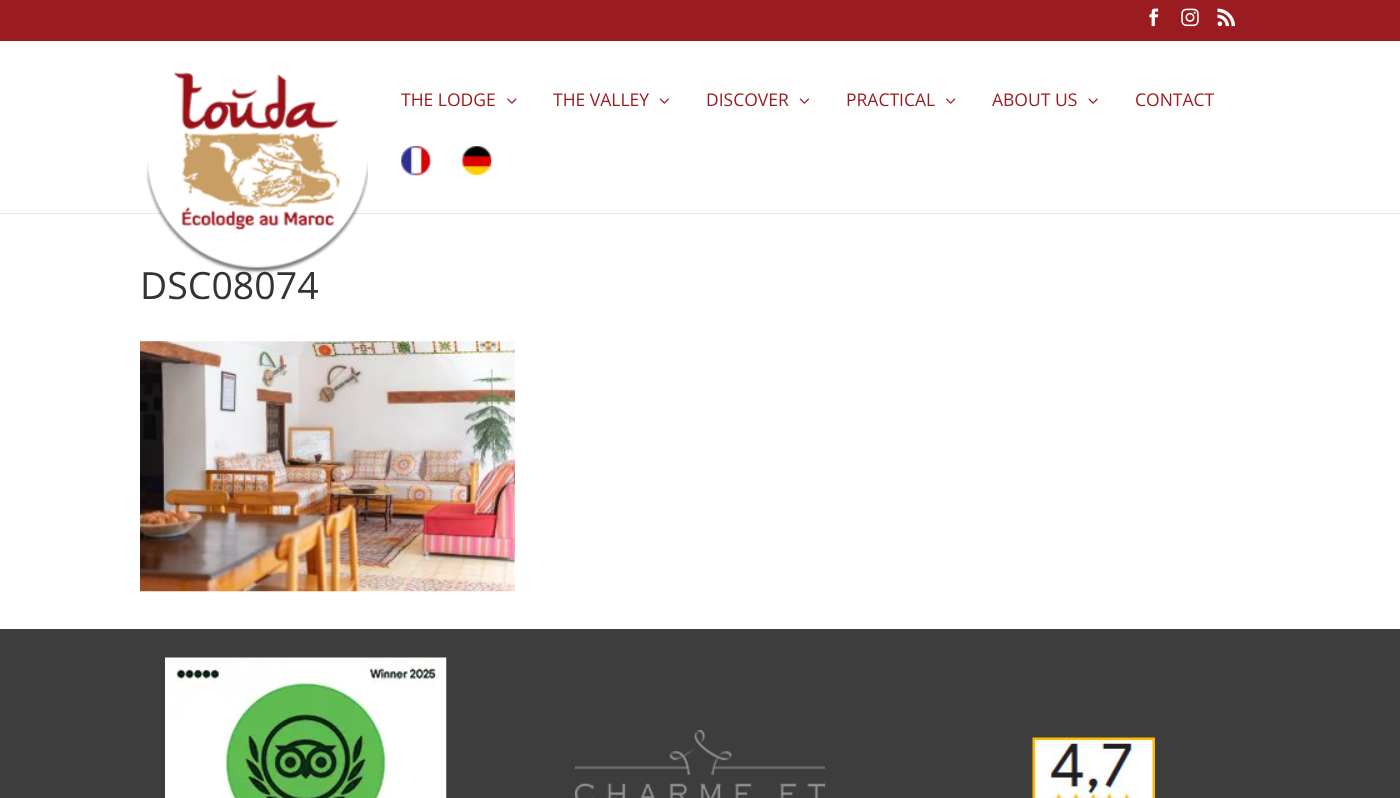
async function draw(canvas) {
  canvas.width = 1400
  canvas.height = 798
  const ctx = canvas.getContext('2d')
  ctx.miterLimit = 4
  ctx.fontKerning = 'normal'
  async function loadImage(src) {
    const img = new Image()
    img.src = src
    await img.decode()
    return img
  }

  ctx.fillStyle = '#fff'
  ctx.fillRect(0, 0, 1400, 798)
  ctx.fillStyle = '#9b1c20'
  ctx.fillRect(0, 0, 1400, 41)
  ctx.drawImage(await loadImage('image0.png'), 1149, 8, 10, 19)
  ctx.drawImage(await loadImage('image1.png'), 1181, 8, 18, 19)
  ctx.drawImage(await loadImage('image2.png'), 1217, 8, 18, 19)
  ctx.fillStyle = '#e6e6e6'
  ctx.fillRect(0, 213, 1400, 1)
  ctx.font = '37.5px Open Sans'
  ctx.fillStyle = '#333'
  ctx.fillText('DSC08074', 140, 299)
  ctx.drawImage(await loadImage('image3.png'), 146, 72, 222, 201)
  ctx.font = '17.5px Open Sans'
  ctx.fillStyle = '#9b1c20'
  ctx.fillText('THE LODGE', 401, 106)
  ctx.drawImage(await loadImage('image4.png'), 507, 98, 10, 6)
  ctx.fillText('THE VALLEY', 553, 106)
  ctx.drawImage(await loadImage('image5.png'), 659, 98, 10, 6)
  ctx.fillText('DISCOVER', 706, 106)
  ctx.drawImage(await loadImage('image5.png'), 799, 98, 10, 6)
  ctx.fillText('PRACTICAL', 846, 106)
  ctx.drawImage(await loadImage('image6.png'), 946, 98, 10, 6)
  ctx.fillText('ABOUT US', 992, 106)
  ctx.drawImage(await loadImage('image7.png'), 1088, 98, 10, 6)
  ctx.fillText('CONTACT', 1135, 106)
  ctx.drawImage(await loadImage('image8.png'), 401, 146, 30, 30)
  ctx.drawImage(await loadImage('image9.png'), 462, 146, 30, 30)
  ctx.drawImage(await loadImage('image10.png'), 140, 341, 375, 251)
  ctx.fillStyle = '#3d3d3d'
  ctx.fillRect(0, 629, 1400, 169)
  ctx.drawImage(await loadImage('image11.png'), 165, 657, 282, 141)
  ctx.drawImage(await loadImage('image12.png'), 575, 730, 250, 68)
  ctx.drawImage(await loadImage('image13.png'), 1032, 737, 123, 61)
}

draw(document.querySelector('canvas'))
